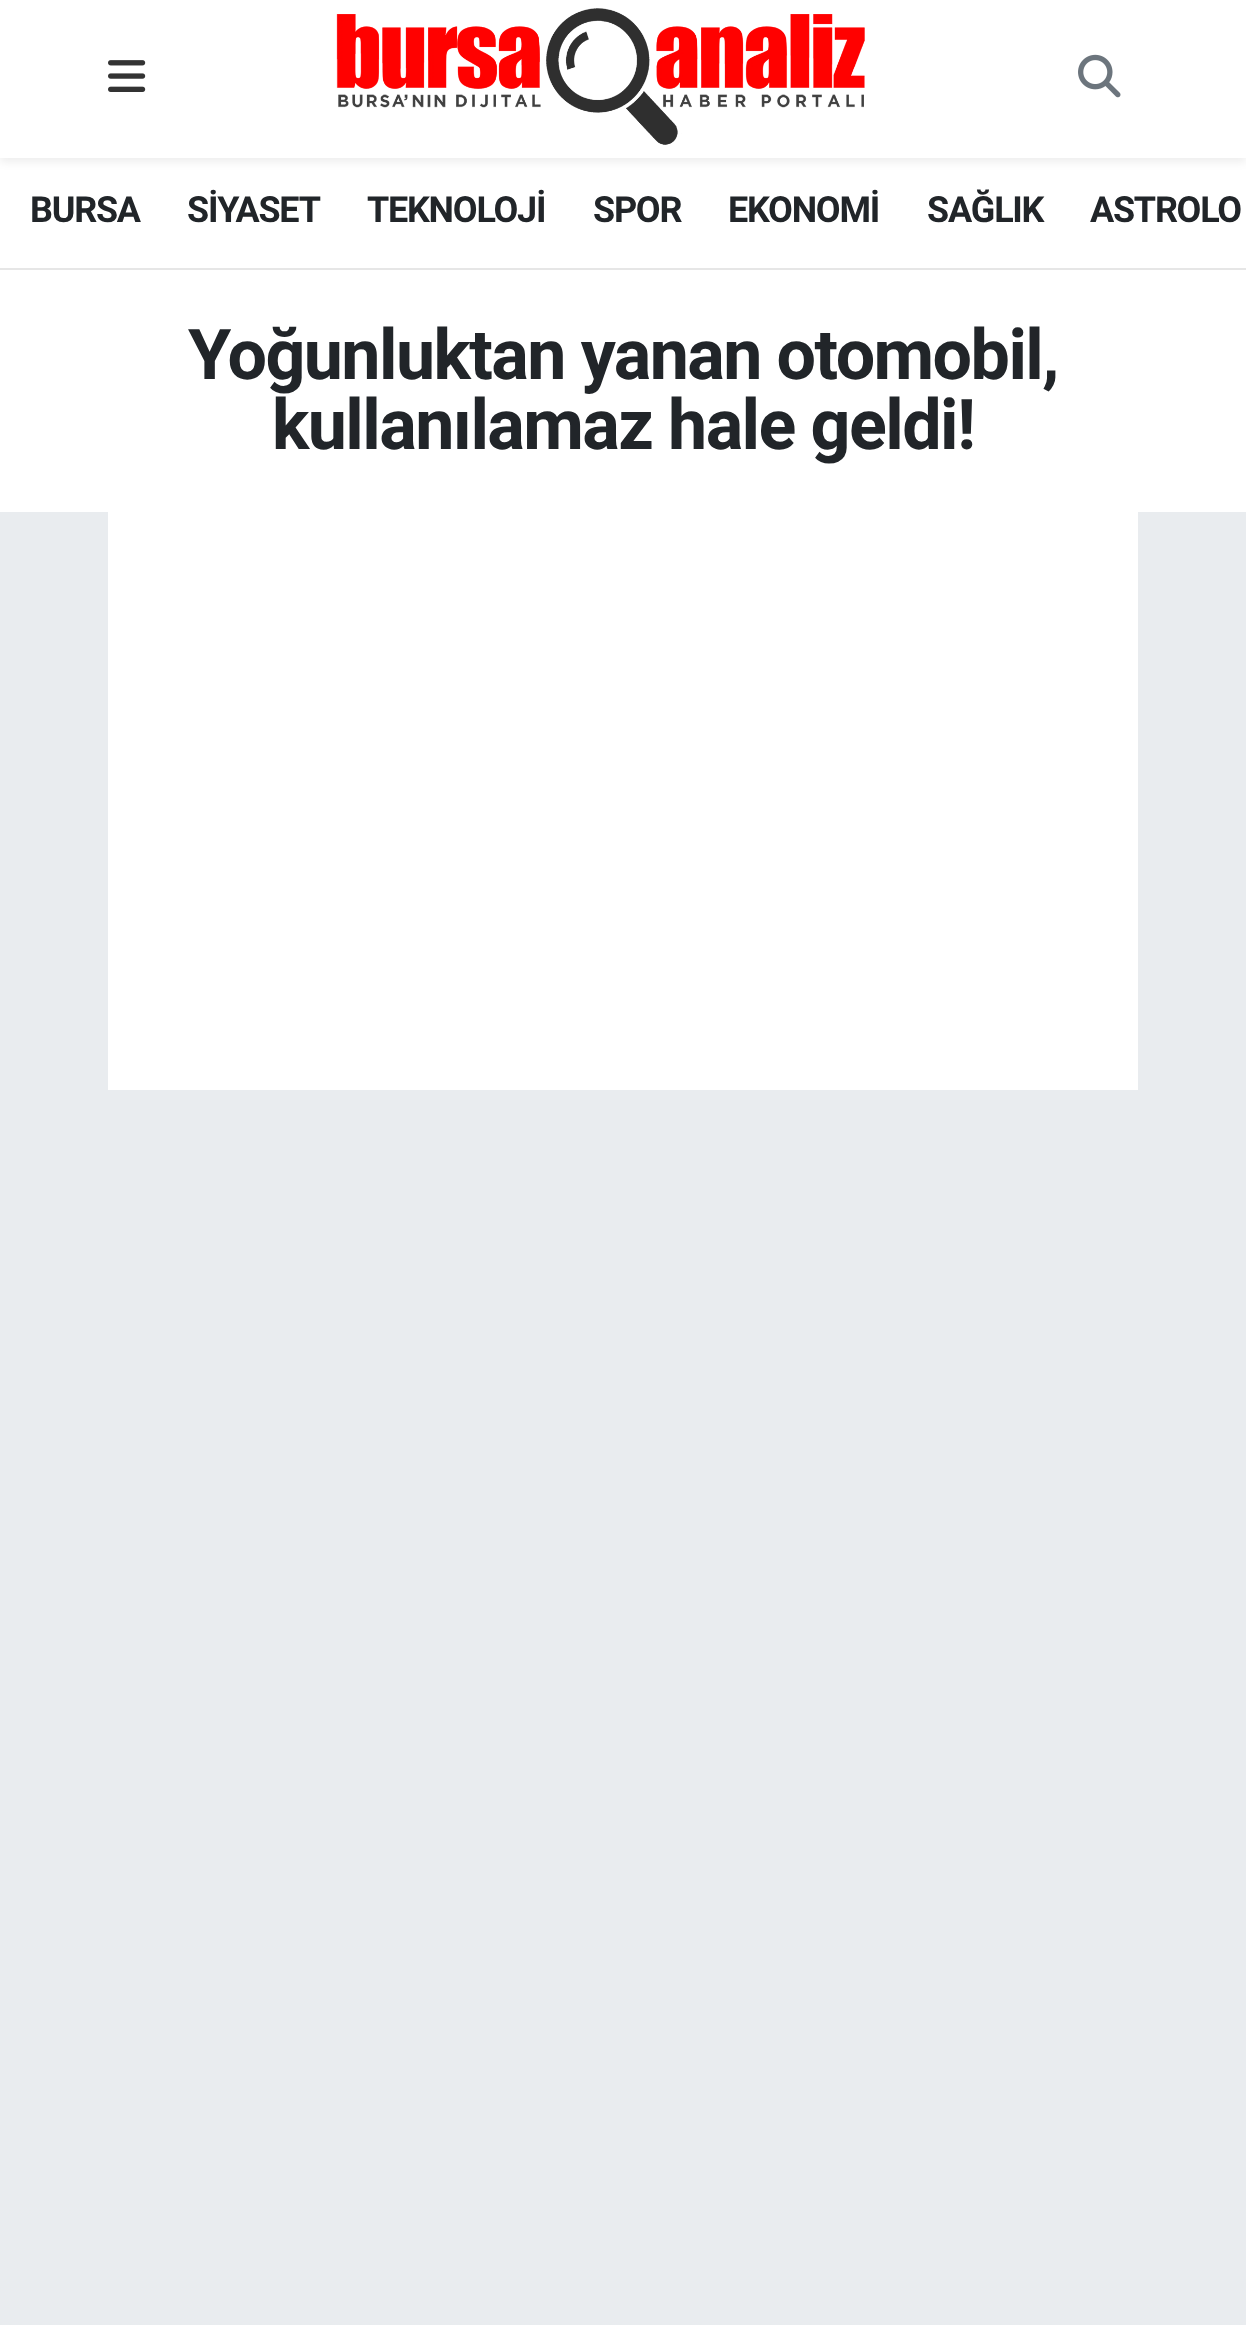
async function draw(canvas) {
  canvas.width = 1246
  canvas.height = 2325
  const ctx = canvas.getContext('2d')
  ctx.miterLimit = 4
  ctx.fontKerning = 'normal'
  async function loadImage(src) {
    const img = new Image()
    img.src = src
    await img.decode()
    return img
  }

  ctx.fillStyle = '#e9ecef'
  ctx.fillRect(0, 0, 1246, 2325)
  ctx.fillStyle = '#fff'
  ctx.fillRect(0, 158, 1246, 110)
  ctx.fillStyle = '#00000012'
  ctx.filter = 'blur(4px)'
  ctx.beginPath()
  ctx.rect(0, 4, 1246, 158)
  ctx.fill()
  ctx.filter = 'none'
  ctx.fillStyle = '#fff'
  ctx.fillRect(0, 0, 1246, 158)
  ctx.drawImage(await loadImage('image0.png'), 108, 60, 38, 32)
  ctx.drawImage(await loadImage('image1.png'), 336, 8, 529, 137)
  ctx.drawImage(await loadImage('image2.png'), 1078, 54, 43, 44)
  ctx.fillStyle = '#e6e6e6'
  ctx.fillRect(0, 268, 1246, 2)
  ctx.letterSpacing = '-1.25px'
  ctx.font = 'bold 36px Roboto'
  ctx.fillStyle = '#212529'
  ctx.fillText('BURSA', 30, 222)
  ctx.fillText('SİYASET', 187, 222)
  ctx.fillText('TEKNOLOJİ', 367, 222)
  ctx.fillText('SPOR', 593, 222)
  ctx.fillText('EKONOMİ', 728, 222)
  ctx.fillText('SAĞLIK', 927, 222)
  ctx.fillText('ASTROLO', 1090, 222)
  ctx.fillStyle = '#fff'
  ctx.fillRect(0, 270, 1246, 242)
  ctx.letterSpacing = '-1.6px'
  ctx.font = 'bold 70px Roboto'
  ctx.fillStyle = '#212529'
  ctx.fillText('Yoğunluktan yanan otomobil,', 188, 379)
  ctx.fillText('kullanılamaz hale geldi!', 272, 449)
  ctx.fillStyle = '#fff'
  ctx.fillRect(108, 512, 1030, 578)
}

draw(document.querySelector('canvas'))
